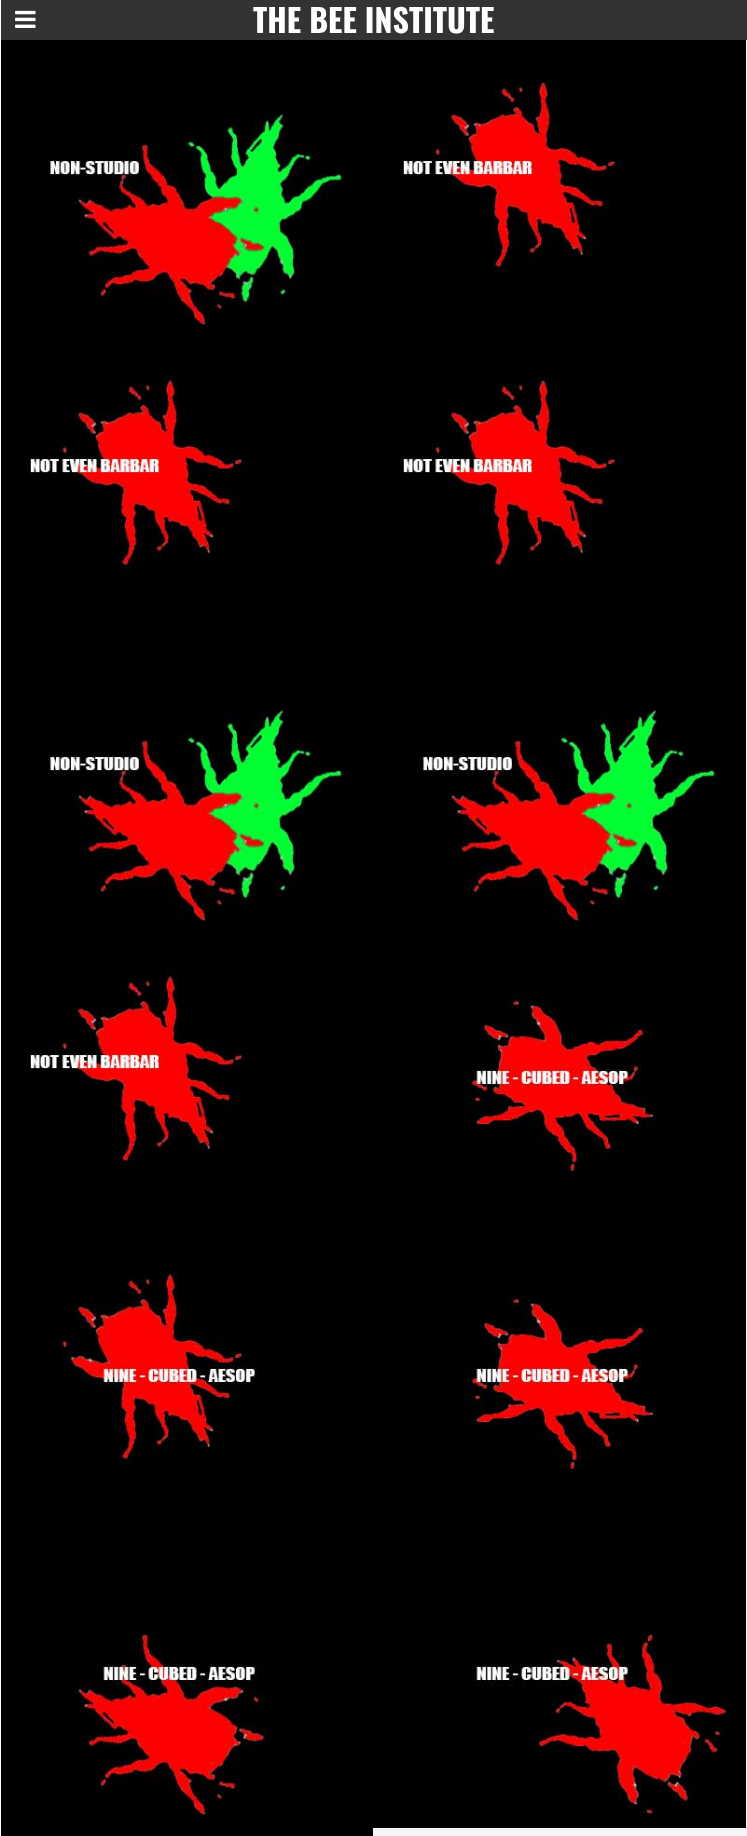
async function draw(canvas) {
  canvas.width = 747
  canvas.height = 1836
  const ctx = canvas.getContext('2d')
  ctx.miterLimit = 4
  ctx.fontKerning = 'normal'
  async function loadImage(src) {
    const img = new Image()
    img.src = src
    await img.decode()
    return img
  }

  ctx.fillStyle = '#f5f5f5'
  ctx.fillRect(0, 0, 747, 1836)
  ctx.fillStyle = '#000'
  ctx.fillRect(0, 1828, 373, 8)
  ctx.fillStyle = '#fff'
  ctx.beginPath()
  ctx.moveTo(-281, -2)
  ctx.lineTo(-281, 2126)
  ctx.lineTo(-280, 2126)
  ctx.lineTo(-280, 0)
  ctx.lineTo(0, 0)
  ctx.lineTo(0, 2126)
  ctx.lineTo(1, 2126)
  ctx.lineTo(1, -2)
  ctx.closePath()
  ctx.fill()
  ctx.fillStyle = '#333'
  ctx.fillRect(1, 0, 746, 40)
  ctx.drawImage(await loadImage('image0.png'), 15, 10, 21, 18)
  ctx.font = 'bold 32px Oswald'
  ctx.fillStyle = '#fff'
  ctx.fillText('THE BEE INSTITUTE', 253, 33)
  ctx.drawImage(await loadImage('image1.png'), 1, 40, 372, 298)
  ctx.drawImage(await loadImage('image2.png'), 373, 40, 373, 298)
  ctx.drawImage(await loadImage('image3.png'), 1, 338, 372, 298)
  ctx.drawImage(await loadImage('image4.png'), 373, 338, 373, 298)
  ctx.drawImage(await loadImage('image5.png'), 1, 636, 372, 298)
  ctx.drawImage(await loadImage('image6.png'), 373, 636, 373, 298)
  ctx.drawImage(await loadImage('image7.png'), 1, 934, 372, 298)
  ctx.drawImage(await loadImage('image8.png'), 373, 934, 373, 298)
  ctx.drawImage(await loadImage('image9.png'), 1, 1232, 372, 298)
  ctx.drawImage(await loadImage('image10.png'), 373, 1232, 373, 298)
  ctx.drawImage(await loadImage('image11.png'), 1, 1530, 372, 298)
  ctx.drawImage(await loadImage('image12.png'), 373, 1530, 373, 298)
}

draw(document.querySelector('canvas'))
